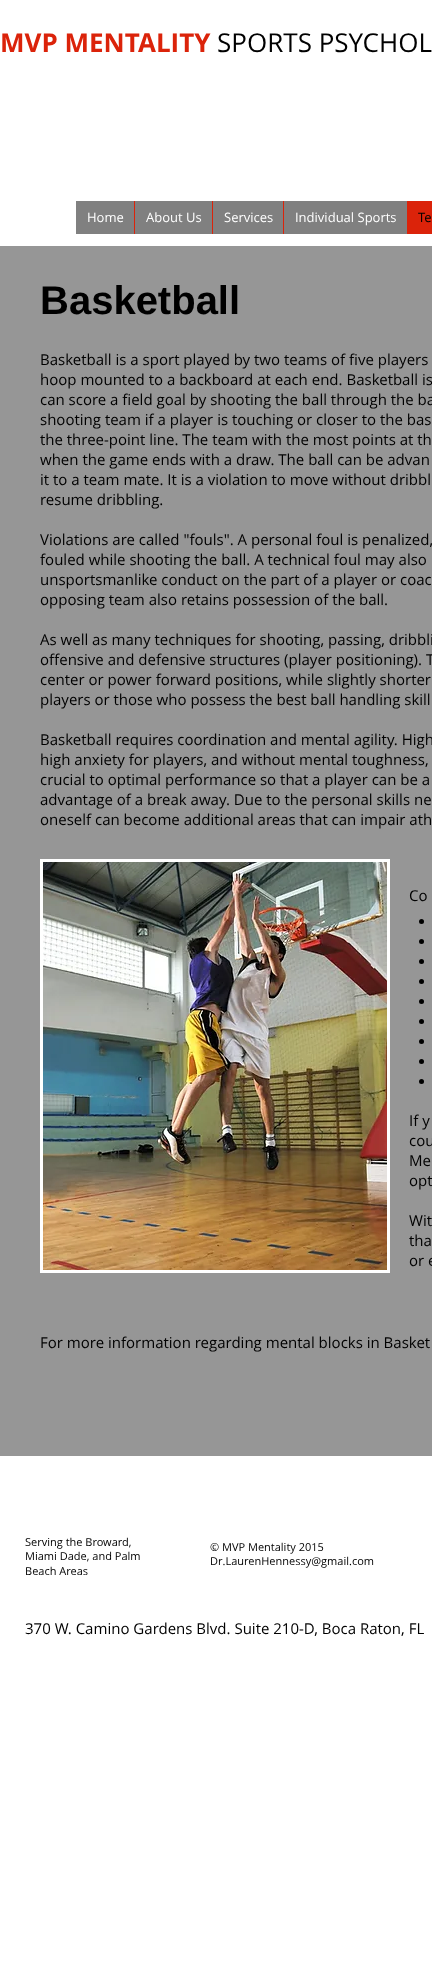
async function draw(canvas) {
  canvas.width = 432
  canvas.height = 1985
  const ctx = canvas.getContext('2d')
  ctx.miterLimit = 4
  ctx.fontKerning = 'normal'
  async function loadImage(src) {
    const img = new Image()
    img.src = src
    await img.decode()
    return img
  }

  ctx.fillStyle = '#fff'
  ctx.fillRect(0, 0, 432, 1985)
  ctx.font = 'bold 26px Open Sans'
  ctx.fillStyle = '#db230a'
  ctx.fillText('MVP MENTALITY', 0, 52)
  ctx.font = '26px Open Sans'
  ctx.fillStyle = '#000'
  ctx.fillText('SPORTS PSYCHOL', 217, 52)
  ctx.fillStyle = '#808080'
  ctx.fillRect(76, 201, 331, 33)
  ctx.font = '13px Open Sans'
  ctx.fillStyle = '#fff'
  ctx.fillText('Home', 87, 222)
  ctx.fillStyle = '#db230a'
  ctx.fillRect(134, 201, 1, 33)
  ctx.fillStyle = '#fff'
  ctx.fillText('About Us', 146, 222)
  ctx.fillStyle = '#db230a'
  ctx.fillRect(212, 201, 1, 33)
  ctx.fillStyle = '#fff'
  ctx.fillText('Services', 224, 222)
  ctx.fillStyle = '#db230a'
  ctx.fillRect(283, 201, 1, 33)
  ctx.fillStyle = '#fff'
  ctx.fillText('Individual Sports', 295, 222)
  ctx.fillStyle = '#db230a'
  ctx.fillRect(407, 201, 25, 33)
  ctx.fillStyle = '#000'
  ctx.fillText('Te', 418, 222)
  ctx.fillStyle = '#969696'
  ctx.fillRect(0, 246, 432, 1210)
  ctx.font = 'bold 40px Liberation Sans'
  ctx.fillStyle = '#000'
  ctx.fillText('Basketball', 40, 314)
  ctx.font = '15px Open Sans'
  ctx.fillText('Basketball is a sport played by two teams of five players', 40, 365)
  ctx.fillText('hoop mounted to a backboard at each end. Basketball is', 40, 385)
  ctx.fillText('can score a field goal by shooting the ball through the ba', 40, 405)
  ctx.fillText('shooting team if a player is touching or closer to the bas', 40, 425)
  ctx.fillText('the three-point line. The team with the most points at th', 40, 445)
  ctx.fillText('when the game ends with a draw. The ball can be advan', 40, 465)
  ctx.fillText('it to a team mate. It is a violation to move without dribbl', 40, 485)
  ctx.fillText('resume dribbling.', 40, 505)
  ctx.fillText('Violations are called "fouls". A personal foul is penalized,', 40, 545)
  ctx.fillText('fouled while shooting the ball. A technical foul may also', 40, 565)
  ctx.fillText('unsportsmanlike conduct on the part of a player or coac', 40, 585)
  ctx.fillText('opposing team also retains possession of the ball.', 40, 605)
  ctx.fillText('As well as many techniques for shooting, passing, dribbli', 40, 645)
  ctx.fillText('offensive and defensive structures (player positioning). T', 40, 665)
  ctx.fillText('center or power forward positions, while slightly shorter', 40, 685)
  ctx.fillText('players or those who possess the best ball handling skill', 40, 705)
  ctx.fillText('Basketball requires coordination and mental agility. High', 40, 745)
  ctx.fillText('high anxiety for players, and without mental toughness,', 40, 765)
  ctx.fillText('crucial to optimal performance so that a player can be a', 40, 785)
  ctx.fillText('advantage of a break away. Due to the personal skills ne', 40, 805)
  ctx.fillText('oneself can become additional areas that can impair ath', 40, 825)
  ctx.fillStyle = '#fff'
  ctx.fillRect(40, 859, 350, 414)
  ctx.drawImage(await loadImage('image0.png'), 43, 862, 344, 408)
  ctx.fillStyle = '#000'
  ctx.fillText('Co', 409, 901)
  ctx.beginPath()
  ctx.arc(421.5, 921.5, 2.5, 0, 2 * Math.PI)
  ctx.fill()
  ctx.beginPath()
  ctx.arc(421.5, 941.5, 2.5, 0, 2 * Math.PI)
  ctx.fill()
  ctx.beginPath()
  ctx.arc(421.5, 961.5, 2.5, 0, 2 * Math.PI)
  ctx.fill()
  ctx.beginPath()
  ctx.arc(421.5, 981.5, 2.5, 0, 2 * Math.PI)
  ctx.fill()
  ctx.beginPath()
  ctx.arc(421.5, 1001.5, 2.5, 0, 2 * Math.PI)
  ctx.fill()
  ctx.beginPath()
  ctx.arc(421.5, 1021.5, 2.5, 0, 2 * Math.PI)
  ctx.fill()
  ctx.beginPath()
  ctx.arc(421.5, 1041.5, 2.5, 0, 2 * Math.PI)
  ctx.fill()
  ctx.beginPath()
  ctx.arc(421.5, 1061.5, 2.5, 0, 2 * Math.PI)
  ctx.fill()
  ctx.beginPath()
  ctx.arc(421.5, 1081.5, 2.5, 0, 2 * Math.PI)
  ctx.fill()
  ctx.fillText('If y', 409, 1126)
  ctx.fillText('cou', 409, 1146)
  ctx.fillText('Me', 409, 1166)
  ctx.fillText('opt', 409, 1186)
  ctx.fillText('Wit', 409, 1226)
  ctx.fillText('tha', 409, 1246)
  ctx.fillText('or e', 409, 1266)
  ctx.fillText('For more information regarding mental blocks in Basket', 40, 1348)
  ctx.font = '11px Open Sans'
  ctx.fillText('Serving the Broward,', 25, 1546)
  ctx.fillText('Miami Dade, and Palm', 25, 1560)
  ctx.fillText('Beach Areas', 25, 1575)
  ctx.fillText('© MVP Mentality 2015', 210, 1551)
  ctx.fillText('Dr.LaurenHennessy@gmail.com', 210, 1565)
  ctx.font = '15px Open Sans'
  ctx.fillText('370 W. Camino Gardens Blvd. Suite 210-D, Boca Raton, FL', 25, 1634)
}

draw(document.querySelector('canvas'))
